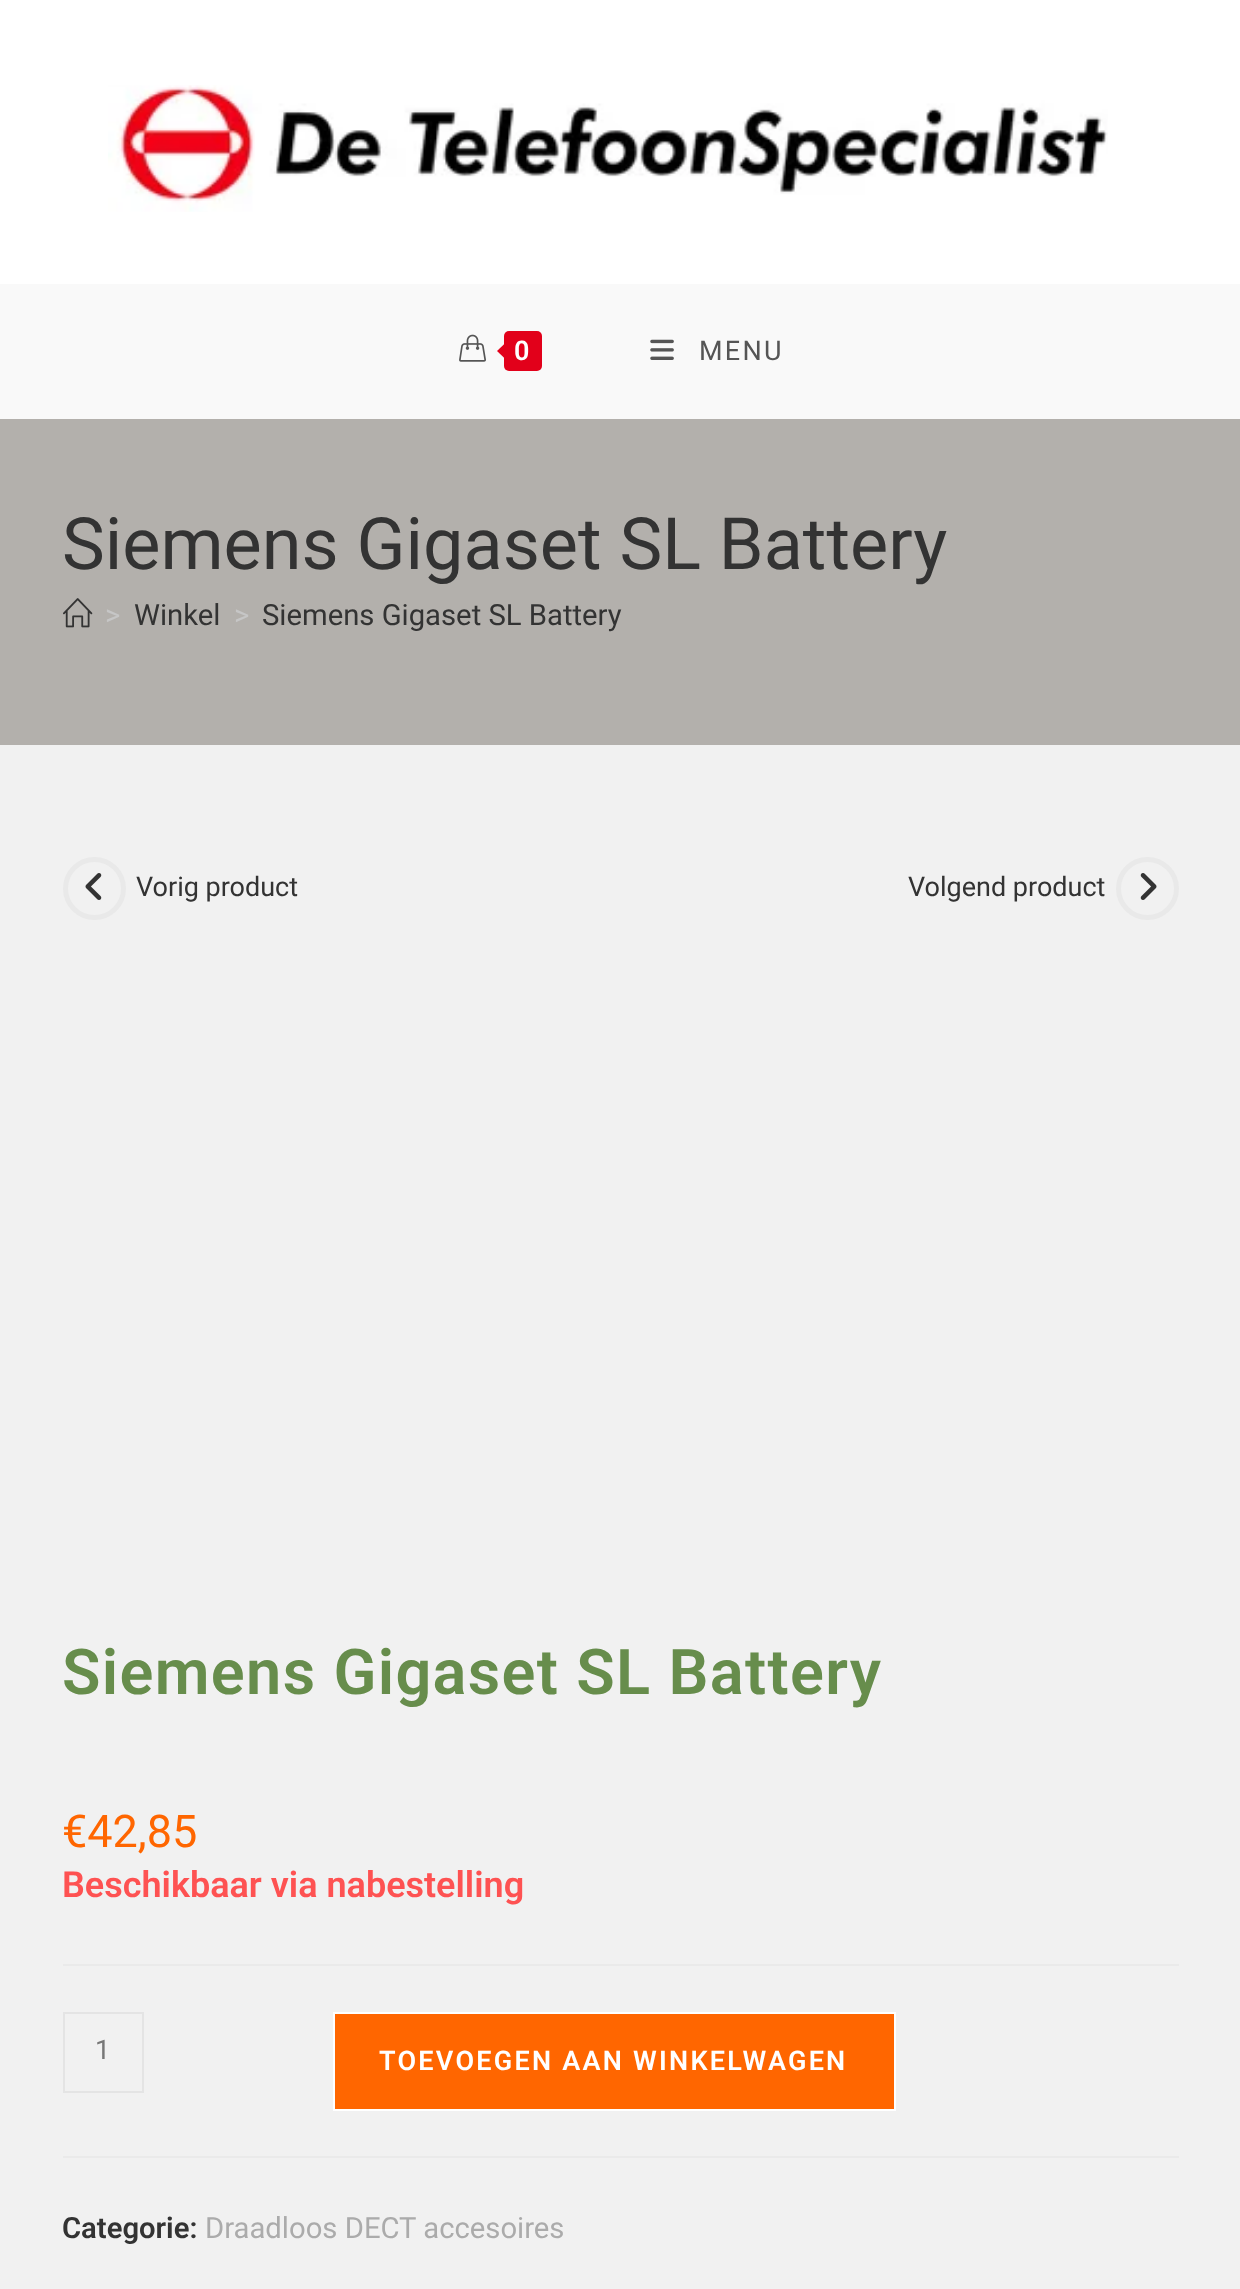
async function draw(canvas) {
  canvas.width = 1240
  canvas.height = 2289
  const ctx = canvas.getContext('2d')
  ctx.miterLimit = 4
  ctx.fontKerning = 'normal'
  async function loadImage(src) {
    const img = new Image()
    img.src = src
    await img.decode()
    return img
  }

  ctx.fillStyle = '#f1f1f1'
  ctx.fillRect(0, 0, 1240, 2289)
  ctx.fillStyle = '#fff'
  ctx.fillRect(0, 0, 1240, 284)
  ctx.drawImage(await loadImage('image0.png'), 108, 85, 1000, 127)
  ctx.fillStyle = '#f9f9f9'
  ctx.fillRect(0, 284, 1240, 135)
  ctx.drawImage(await loadImage('image1.png'), 459, 334, 27, 28)
  ctx.fillStyle = '#e2001a'
  ctx.beginPath()
  ctx.roundRect(504, 331, 38, 40, 5)
  ctx.fill()
  ctx.beginPath()
  ctx.moveTo(508.5, 340)
  ctx.lineTo(508.5, 362)
  ctx.lineTo(497, 351)
  ctx.closePath()
  ctx.fill()
  ctx.letterSpacing = '2.25px'
  ctx.font = '600 27px Roboto'
  ctx.fillStyle = '#fff'
  ctx.fillText('0', 514, 360)
  ctx.drawImage(await loadImage('image2.png'), 650, 339, 24, 21)
  ctx.font = '27px Roboto'
  ctx.fillStyle = '#555'
  ctx.fillText('MENU', 699, 360)
  ctx.fillStyle = '#b3b0ac'
  ctx.fillRect(0, 419, 1240, 326)
  ctx.letterSpacing = '0px'
  ctx.font = '72px Roboto'
  ctx.fillStyle = '#333'
  ctx.fillText('Siemens Gigaset SL Battery', 62, 569)
  ctx.drawImage(await loadImage('image3.png'), 63, 598, 30, 30)
  ctx.font = '29.25px Roboto'
  ctx.fillStyle = '#c6c6c6'
  ctx.fillText('>', 105, 625)
  ctx.fillStyle = '#333'
  ctx.fillText('Winkel', 134, 625)
  ctx.fillStyle = '#c6c6c6'
  ctx.fillText('>', 234, 625)
  ctx.fillStyle = '#333'
  ctx.fillText('Siemens Gigaset SL Battery', 262, 625)
  ctx.beginPath()
  ctx.arc(94.5, 888.5, 29, 0, 2 * Math.PI)
  ctx.strokeStyle = '#e9e9e9'
  ctx.lineWidth = 5
  ctx.stroke()
  ctx.drawImage(await loadImage('image4.png'), 85, 873, 17, 27)
  ctx.font = '27px Roboto'
  ctx.fillText('Vorig product', 136, 896)
  ctx.fillText('Volgend product', 908, 896)
  ctx.beginPath()
  ctx.arc(1147.5, 888.5, 29, 0, 2 * Math.PI)
  ctx.stroke()
  ctx.drawImage(await loadImage('image5.png'), 1140, 873, 17, 27)
  ctx.letterSpacing = '1.35px'
  ctx.font = '600 63px Roboto'
  ctx.fillStyle = '#678d4c'
  ctx.fillText('Siemens Gigaset SL Battery', 62, 1694)
  ctx.letterSpacing = '0px'
  ctx.font = '45px Roboto'
  ctx.fillStyle = '#f60'
  ctx.fillText('€42,85', 62, 1847)
  ctx.font = '600 36px Roboto'
  ctx.fillStyle = '#fe5252'
  ctx.fillText('Beschikbaar via nabestelling', 62, 1897)
  ctx.fillStyle = '#eaeaea'
  ctx.fillRect(63, 1964, 1116, 2)
  ctx.fillRect(63, 2156, 1116, 2)
  ctx.strokeStyle = '#e4e4e4'
  ctx.lineWidth = 2
  ctx.strokeRect(64, 2013, 79, 79)
  ctx.font = '27px Roboto'
  ctx.fillStyle = '#777'
  ctx.fillText('1', 95, 2059)
  ctx.fillStyle = '#f60'
  ctx.beginPath()
  ctx.rect(334, 2013, 561, 97)
  ctx.fill()
  ctx.strokeStyle = '#fff'
  ctx.stroke()
  ctx.letterSpacing = '2.25px'
  ctx.font = '600 27px Roboto'
  ctx.fillStyle = '#fff'
  ctx.fillText('TOEVOEGEN AAN WINKELWAGEN', 379, 2070)
  ctx.letterSpacing = '0px'
  ctx.font = '600 29.25px Roboto'
  ctx.fillStyle = '#333'
  ctx.fillText('Categorie:', 62, 2238)
  ctx.font = '29.25px Roboto'
  ctx.fillStyle = '#ababab'
  ctx.fillText('Draadloos DECT accesoires', 205, 2238)
}

draw(document.querySelector('canvas'))
